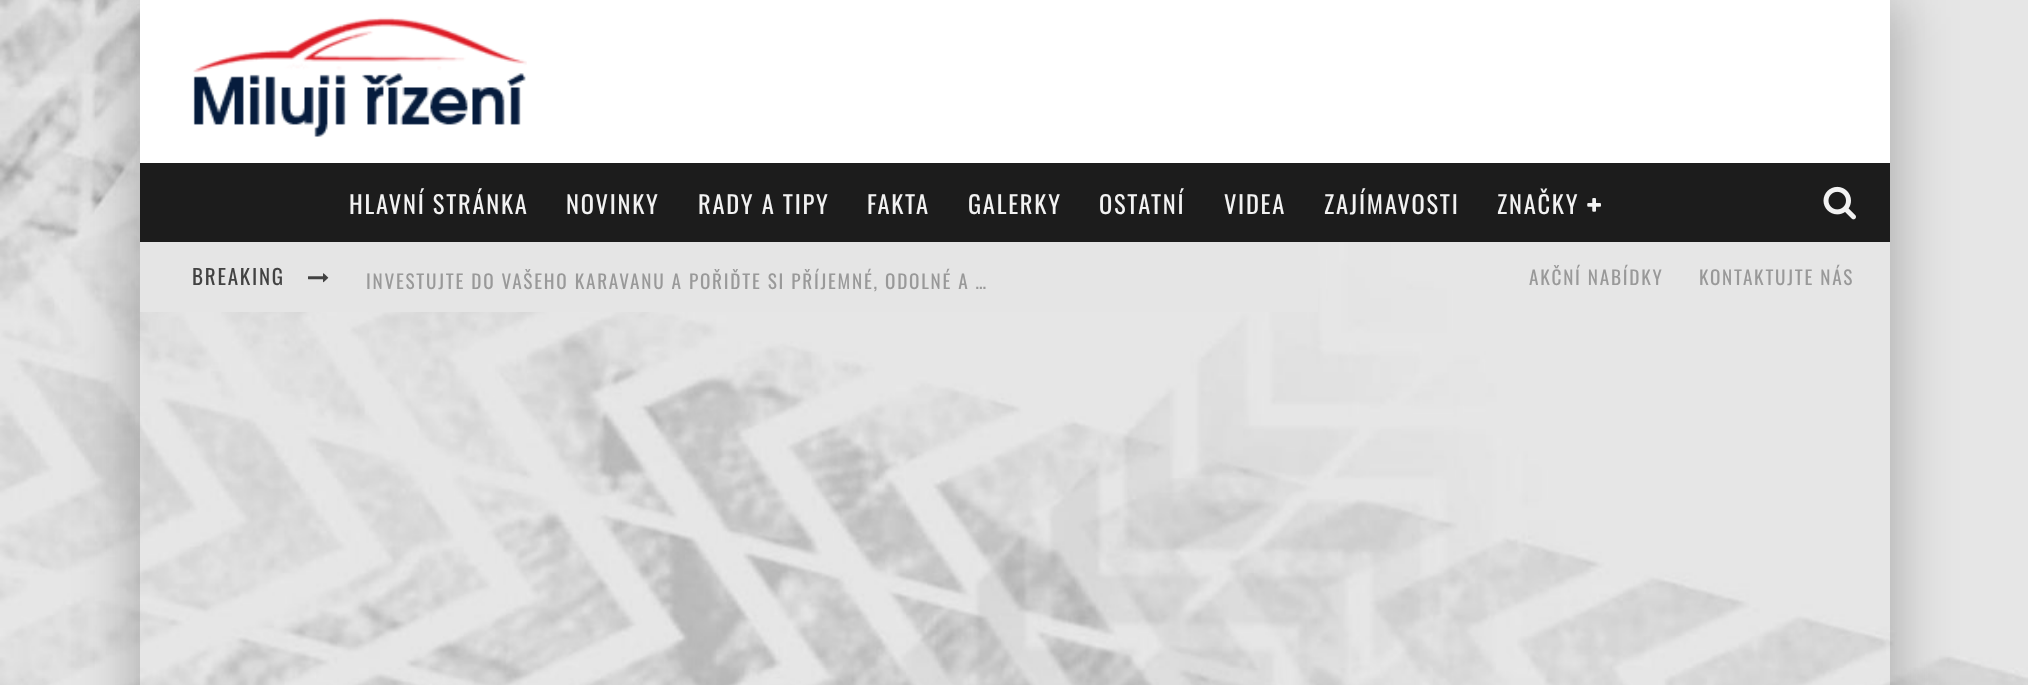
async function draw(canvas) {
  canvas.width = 2028
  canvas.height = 685
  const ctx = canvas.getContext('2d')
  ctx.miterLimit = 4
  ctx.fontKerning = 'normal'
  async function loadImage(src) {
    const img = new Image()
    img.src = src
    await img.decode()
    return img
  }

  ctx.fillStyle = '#fff'
  ctx.fillRect(0, 0, 2028, 685)
  ctx.drawImage(await loadImage('image0.png'), 0, 0, 2028, 685)
  ctx.save()
  ctx.beginPath()
  ctx.moveTo(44, 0)
  ctx.lineTo(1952, 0)
  ctx.lineTo(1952, 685)
  ctx.lineTo(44, 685)
  ctx.closePath()
  ctx.moveTo(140, 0)
  ctx.lineTo(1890, 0)
  ctx.lineTo(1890, 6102)
  ctx.lineTo(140, 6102)
  ctx.closePath()
  ctx.clip('evenodd')
  ctx.fillStyle = '#00000026'
  ctx.filter = 'blur(26px)'
  ctx.beginPath()
  ctx.rect(123, 0, 1750, 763)
  ctx.fill()
  ctx.filter = 'none'
  ctx.restore()
  ctx.save()
  ctx.beginPath()
  ctx.moveTo(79, 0)
  ctx.lineTo(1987, 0)
  ctx.lineTo(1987, 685)
  ctx.lineTo(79, 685)
  ctx.closePath()
  ctx.moveTo(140, 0)
  ctx.lineTo(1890, 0)
  ctx.lineTo(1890, 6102)
  ctx.lineTo(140, 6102)
  ctx.closePath()
  ctx.clip('evenodd')
  ctx.fillStyle = '#00000026'
  ctx.filter = 'blur(26px)'
  ctx.beginPath()
  ctx.rect(158, 0, 1750, 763)
  ctx.fill()
  ctx.filter = 'none'
  ctx.restore()
  ctx.fillRect(140, 0, 1750, 163)
  ctx.drawImage(await loadImage('image1.png'), 193, 17, 334, 120)
  ctx.fillStyle = '#1c1c1c'
  ctx.fillRect(140, 163, 1750, 79)
  ctx.letterSpacing = '1.75px'
  ctx.font = '24.5px Oswald'
  ctx.fillStyle = '#f2f2f2'
  ctx.fillText('HLAVNÍ STRÁNKA', 349, 214)
  ctx.fillText('NOVINKY', 566, 214)
  ctx.fillText('RADY A TIPY', 698, 214)
  ctx.fillText('FAKTA', 867, 214)
  ctx.fillText('GALERKY', 968, 214)
  ctx.fillText('OSTATNÍ', 1099, 214)
  ctx.fillText('VIDEA', 1224, 214)
  ctx.fillText('ZAJÍMAVOSTI', 1324, 214)
  ctx.fillText('ZNAČKY', 1497, 214)
  ctx.drawImage(await loadImage('image2.png'), 1587, 198, 14, 14)
  ctx.drawImage(await loadImage('image3.png'), 1823, 186, 33, 34)
  ctx.fillStyle = '#e5e5e5'
  ctx.fillRect(140, 242, 1178, 70)
  ctx.font = '21px Oswald'
  ctx.fillStyle = '#424242'
  ctx.fillText('BREAKING', 192, 285)
  ctx.drawImage(await loadImage('image4.png'), 308, 273, 21, 10)
  ctx.font = '19.25px Oswald'
  ctx.fillStyle = '#999'
  ctx.fillText('INVESTUJTE DO VAŠEHO KARAVANU A POŘIĎTE SI PŘÍJEMNÉ, ODOLNÉ A …', 366, 289)
  ctx.fillText('AKČNÍ NABÍDKY', 1529, 285)
  ctx.fillText('KONTAKTUJTE NÁS', 1699, 285)
}

draw(document.querySelector('canvas'))
